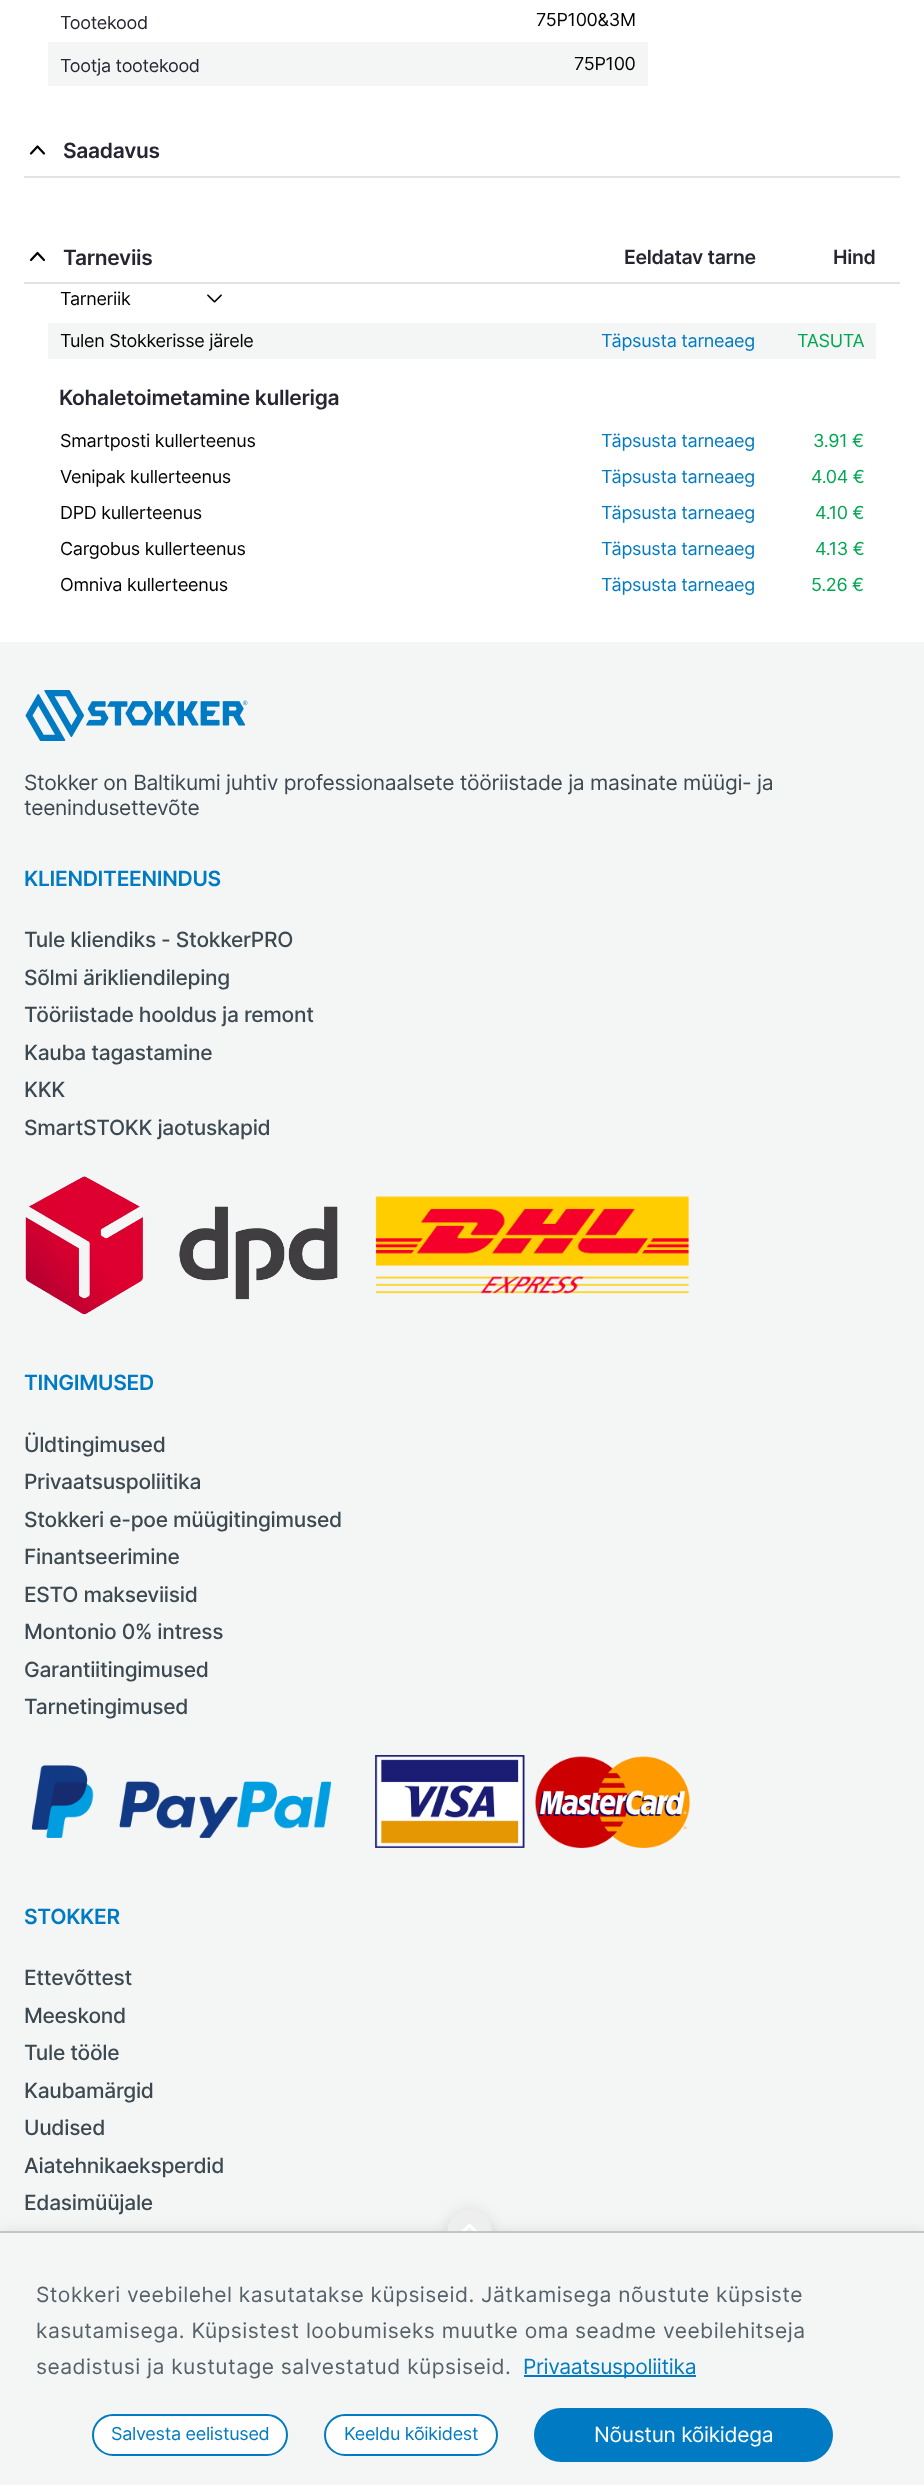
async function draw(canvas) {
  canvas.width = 924
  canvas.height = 2485
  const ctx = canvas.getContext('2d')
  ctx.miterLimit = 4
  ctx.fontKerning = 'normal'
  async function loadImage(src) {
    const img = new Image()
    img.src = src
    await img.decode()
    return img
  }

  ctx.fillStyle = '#fff'
  ctx.fillRect(0, 0, 924, 2485)
  ctx.letterSpacing = '-0.3px'
  ctx.font = '18px Inter'
  ctx.fillStyle = '#262633'
  ctx.fillText('Tootekood', 60, 29)
  ctx.fillStyle = '#000'
  ctx.fillText('75P100&3M', 536, 26)
  ctx.fillStyle = '#f4f6f6'
  ctx.fillRect(48, 42, 600, 44)
  ctx.fillStyle = '#262633'
  ctx.fillText('Tootja tootekood', 60, 72)
  ctx.fillStyle = '#000'
  ctx.fillText('75P100', 574, 70)
  ctx.fillStyle = '#e3e3e3'
  ctx.fillRect(24, 176, 876, 2)
  ctx.beginPath()
  ctx.moveTo(44, 153.5)
  ctx.lineTo(37.5, 146.5)
  ctx.lineTo(31, 153.5)
  ctx.strokeStyle = '#000'
  ctx.lineWidth = 2.2
  ctx.lineCap = 'round'
  ctx.lineJoin = 'round'
  ctx.stroke()
  ctx.font = '600 21px Inter'
  ctx.fillStyle = '#262633'
  ctx.fillText('Saadavus', 63, 158)
  ctx.fillStyle = '#e3e3e3'
  ctx.fillRect(24, 282, 876, 2)
  ctx.beginPath()
  ctx.moveTo(44, 260)
  ctx.lineTo(37.5, 253)
  ctx.lineTo(31, 260)
  ctx.stroke()
  ctx.fillStyle = '#262633'
  ctx.fillText('Tarneviis', 63, 265)
  ctx.font = '600 19.5px Inter'
  ctx.fillText('Eeldatav tarne', 624, 264)
  ctx.fillText('Hind', 833, 264)
  ctx.font = '18px Inter'
  ctx.fillStyle = '#000'
  ctx.fillText('Tarneriik', 60, 305)
  ctx.drawImage(await loadImage('image0.png'), 207, 294, 15, 9)
  ctx.fillStyle = '#f4f6f6'
  ctx.fillRect(48, 323, 828, 36)
  ctx.fillStyle = '#000'
  ctx.fillText('Tulen Stokkerisse järele', 60, 347)
  ctx.fillStyle = '#007ac2'
  ctx.fillText('Täpsusta tarneaeg', 601, 347)
  ctx.fillStyle = '#00a651'
  ctx.fillText('TASUTA', 797, 347)
  ctx.font = '600 21px Inter'
  ctx.fillStyle = '#262633'
  ctx.fillText('Kohaletoimetamine kulleriga', 59, 405)
  ctx.font = '18px Inter'
  ctx.fillStyle = '#000'
  ctx.fillText('Smartposti kullerteenus', 60, 447)
  ctx.fillStyle = '#007ac2'
  ctx.fillText('Täpsusta tarneaeg', 601, 447)
  ctx.fillStyle = '#00a651'
  ctx.fillText('3.91 €', 813, 447)
  ctx.fillStyle = '#000'
  ctx.fillText('Venipak kullerteenus', 60, 483)
  ctx.fillStyle = '#007ac2'
  ctx.fillText('Täpsusta tarneaeg', 601, 483)
  ctx.fillStyle = '#00a651'
  ctx.fillText('4.04 €', 811, 483)
  ctx.fillStyle = '#000'
  ctx.fillText('DPD kullerteenus', 60, 519)
  ctx.fillStyle = '#007ac2'
  ctx.fillText('Täpsusta tarneaeg', 601, 519)
  ctx.fillStyle = '#00a651'
  ctx.fillText('4.10 €', 815, 519)
  ctx.fillStyle = '#000'
  ctx.fillText('Cargobus kullerteenus', 60, 555)
  ctx.fillStyle = '#007ac2'
  ctx.fillText('Täpsusta tarneaeg', 601, 555)
  ctx.fillStyle = '#00a651'
  ctx.fillText('4.13 €', 815, 555)
  ctx.fillStyle = '#000'
  ctx.fillText('Omniva kullerteenus', 60, 591)
  ctx.fillStyle = '#007ac2'
  ctx.fillText('Täpsusta tarneaeg', 601, 591)
  ctx.fillStyle = '#00a651'
  ctx.fillText('5.26 €', 811, 591)
  ctx.fillStyle = '#f4f6f6'
  ctx.fillRect(0, 642, 924, 1589)
  ctx.drawImage(await loadImage('image1.png'), 25, 690, 223, 51)
  ctx.font = '21px Inter'
  ctx.fillStyle = '#3d4950'
  ctx.fillText('Stokker on Baltikumi juhtiv professionaalsete tööriistade ja masinate müügi- ja', 24, 790)
  ctx.fillText('teenindusettevõte', 24, 815)
  ctx.font = '600 21px Inter'
  ctx.fillStyle = '#007ac2'
  ctx.fillText('KLIENDITEENINDUS', 24, 886)
  ctx.font = '500 21px Inter'
  ctx.fillStyle = '#3d4950'
  ctx.fillText('Tule kliendiks - StokkerPRO', 24, 947)
  ctx.fillText('Sõlmi ärikliendileping', 24, 985)
  ctx.fillText('Tööriistade hooldus ja remont', 24, 1022)
  ctx.fillText('Kauba tagastamine', 24, 1060)
  ctx.fillText('KKK', 24, 1097)
  ctx.fillText('SmartSTOKK jaotuskapid', 24, 1135)
  ctx.drawImage(await loadImage('image2.png'), 25, 1176, 313, 139)
  ctx.drawImage(await loadImage('image3.png'), 375, 1196, 315, 98)
  ctx.font = '600 21px Inter'
  ctx.fillStyle = '#007ac2'
  ctx.fillText('TINGIMUSED', 24, 1390)
  ctx.font = '500 21px Inter'
  ctx.fillStyle = '#3d4950'
  ctx.fillText('Üldtingimused', 24, 1452)
  ctx.fillText('Privaatsuspoliitika', 24, 1489)
  ctx.fillText('Stokkeri e-poe müügitingimused', 24, 1527)
  ctx.fillText('Finantseerimine', 24, 1564)
  ctx.fillText('ESTO makseviisid', 24, 1602)
  ctx.fillText('Montonio 0% intress', 24, 1639)
  ctx.fillText('Garantiitingimused', 24, 1677)
  ctx.fillText('Tarnetingimused', 24, 1714)
  ctx.drawImage(await loadImage('image4.png'), 31, 1765, 301, 73)
  ctx.drawImage(await loadImage('image5.png'), 375, 1755, 315, 93)
  ctx.font = '600 21px Inter'
  ctx.fillStyle = '#007ac2'
  ctx.fillText('STOKKER', 24, 1924)
  ctx.font = '500 21px Inter'
  ctx.fillStyle = '#3d4950'
  ctx.fillText('Ettevõttest', 24, 1985)
  ctx.fillText('Meeskond', 24, 2023)
  ctx.fillText('Tule tööle', 24, 2060)
  ctx.fillText('Kaubamärgid', 24, 2098)
  ctx.fillText('Uudised', 24, 2135)
  ctx.fillText('Aiatehnikaeksperdid', 24, 2173)
  ctx.fillText('Edasimüüjale', 24, 2210)
  ctx.fillStyle = '#0000001a'
  ctx.filter = 'blur(7.5px)'
  ctx.beginPath()
  ctx.rect(0, 2232, 924, 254)
  ctx.fill()
  ctx.filter = 'none'
  ctx.filter = 'blur(7.5px)'
  ctx.beginPath()
  ctx.roundRect(447, 2210, 45, 45, 22.5)
  ctx.fill()
  ctx.filter = 'none'
  ctx.fillStyle = '#eee'
  ctx.beginPath()
  ctx.moveTo(470, 2254)
  ctx.bezierCurveTo(440, 2254, 440, 2210, 470, 2210)
  ctx.bezierCurveTo(499, 2210, 499, 2254, 470, 2254)
  ctx.closePath()
  ctx.fill()
  ctx.drawImage(await loadImage('image6.png'), 461, 2224, 17, 7)
  ctx.fillStyle = '#f4f6f6'
  ctx.fillRect(0, 2233, 924, 252)
  ctx.fillStyle = '#c3c5c5'
  ctx.fillRect(0, 2231, 924, 2)
  ctx.letterSpacing = '0.48px'
  ctx.font = '21px Inter'
  ctx.fillStyle = '#566168'
  ctx.fillText('Stokkeri veebilehel kasutatakse küpsiseid. Jätkamisega nõustute küpsiste', 36, 2302)
  ctx.fillText('kasutamisega. Küpsistest loobumiseks muutke oma seadme veebilehitseja', 36, 2338)
  ctx.fillText('seadistusi ja kustutage salvestatud küpsiseid.', 36, 2374)
  ctx.fillStyle = '#007ac2'
  ctx.fillRect(524, 2375, 172, 2)
  ctx.letterSpacing = '-0.3px'
  ctx.fillText('Privaatsuspoliitika', 523, 2374)
  ctx.fillStyle = '#fff'
  ctx.beginPath()
  ctx.roundRect(93, 2415, 194, 40, 20)
  ctx.fill()
  ctx.strokeStyle = '#007ac2'
  ctx.lineWidth = 2
  ctx.lineJoin = 'miter'
  ctx.stroke()
  ctx.font = '18px Inter'
  ctx.fillStyle = '#007ac2'
  ctx.fillText('Salvesta eelistused', 111, 2440)
  ctx.fillStyle = '#fff'
  ctx.beginPath()
  ctx.roundRect(325, 2415, 172, 40, 20)
  ctx.fill()
  ctx.stroke()
  ctx.fillStyle = '#007ac2'
  ctx.fillText('Keeldu kõikidest', 344, 2440)
  ctx.beginPath()
  ctx.roundRect(534, 2408, 299, 54, 27)
  ctx.fill()
  ctx.font = '21px Inter'
  ctx.fillStyle = '#fff'
  ctx.fillText('Nõustun kõikidega', 594, 2442)
}

draw(document.querySelector('canvas'))
